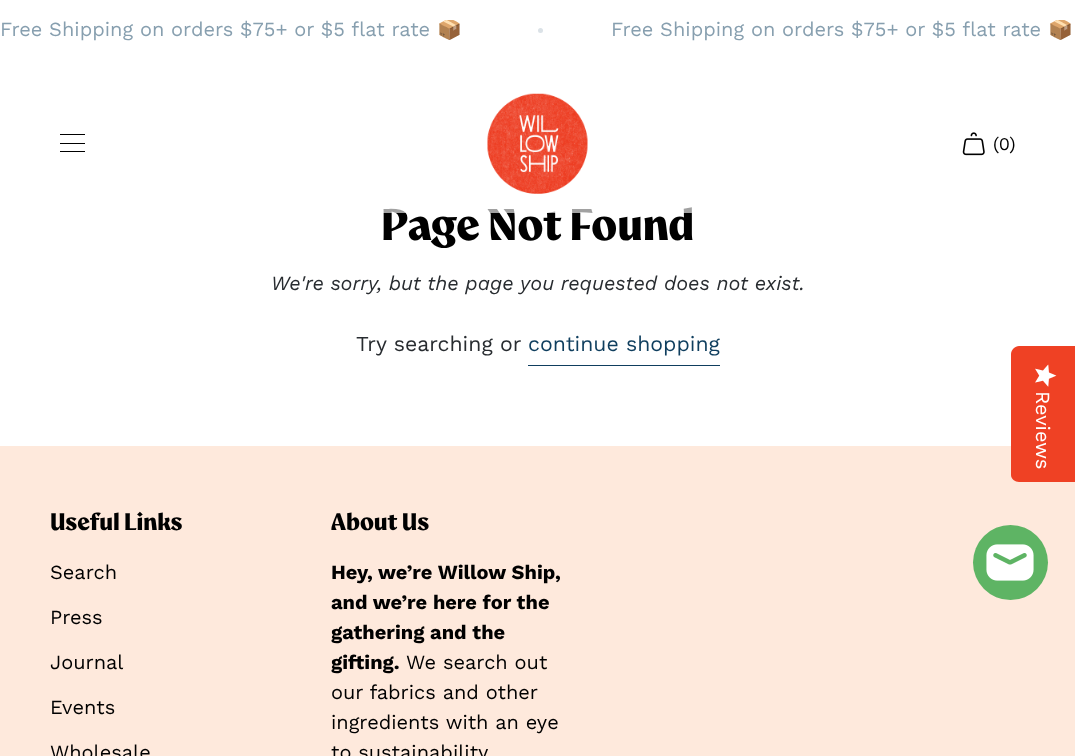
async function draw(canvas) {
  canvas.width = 1075
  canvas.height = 756
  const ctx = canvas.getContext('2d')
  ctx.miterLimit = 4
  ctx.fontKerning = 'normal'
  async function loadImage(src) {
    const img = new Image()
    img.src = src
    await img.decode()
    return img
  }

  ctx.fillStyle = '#fff'
  ctx.fillRect(0, 0, 1075, 756)
  ctx.font = '20px Work Sans'
  ctx.fillStyle = '#879faf'
  ctx.fillText('Free Shipping on orders $75+ or $5 flat rate', 0, 36)
  ctx.save()
  ctx.beginPath()
  ctx.rect(0, 20, 1075, 35)
  ctx.clip()
  ctx.font = '20px Noto Color Emoji'
  ctx.fillText('📦', 437, 36)
  ctx.restore()
  ctx.fillStyle = '#dbe2e7'
  ctx.beginPath()
  ctx.arc(540.5, 30.5, 2.5, 0, 2 * Math.PI)
  ctx.fill()
  ctx.fillStyle = '#879faf'
  ctx.fillText('Free Shipping on orders $75+ or $5 flat rate', 611, 36)
  ctx.save()
  ctx.beginPath()
  ctx.rect(0, 20, 1075, 35)
  ctx.clip()
  ctx.font = '20px Noto Color Emoji'
  ctx.fillText('📦', 1048, 36)
  ctx.restore()
  ctx.font = 'bold 45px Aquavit'
  ctx.fillStyle = '#000'
  ctx.fillText('Page Not Found', 381, 240)
  ctx.fillStyle = '#ffffffa1'
  ctx.beginPath()
  ctx.roundRect(30, 75, 1015, 138, 69)
  ctx.fill()
  ctx.fillStyle = '#000'
  ctx.fillRect(60, 143, 25, 1)
  ctx.fillRect(60, 134, 25, 1)
  ctx.fillRect(60, 151, 25, 1)
  ctx.drawImage(await loadImage('image0.png'), 487, 93, 101, 101)
  ctx.drawImage(await loadImage('image1.png'), 962, 132, 23, 24)
  ctx.font = '18px Work Sans'
  ctx.fillText('(0)', 993, 150)
  ctx.font = 'italic 20px Work Sans'
  ctx.fillStyle = '#282c30'
  ctx.fillText('We\'re sorry, but the page you requested does not exist.', 271, 290)
  ctx.font = '21.25px Work Sans'
  ctx.fillText('Try searching or', 356, 351)
  ctx.fillStyle = '#0f3e5e'
  ctx.fillText('continue shopping', 528, 351)
  ctx.fillRect(528, 365, 192, 1)
  ctx.fillStyle = '#fee9dc'
  ctx.fillRect(0, 446, 1075, 310)
  ctx.fillStyle = '#ef4124'
  ctx.beginPath()
  ctx.moveTo(1075, 346)
  ctx.lineTo(1075, 482)
  ctx.lineTo(1019, 482)
  ctx.bezierCurveTo(1015, 482, 1011, 479, 1011, 475)
  ctx.lineTo(1011, 354)
  ctx.bezierCurveTo(1011, 350, 1015, 346, 1019, 346)
  ctx.closePath()
  ctx.fill()
  ctx.drawImage(await loadImage('image2.png'), 1035, 364, 22, 23)
  ctx.font = '20px Work Sans'
  ctx.fillStyle = '#fff'
  ctx.save()
  ctx.translate(1036, 391)
  ctx.rotate(90 * Math.PI / 180)
  ctx.fillText('Reviews', 0, 0)
  ctx.restore()
  ctx.font = 'bold 24.25px Aquavit'
  ctx.fillStyle = '#000'
  ctx.fillText('Useful Links', 50, 530)
  ctx.font = '20px Work Sans'
  ctx.fillText('Search', 50, 579)
  ctx.fillText('Press', 50, 624)
  ctx.fillText('Journal', 50, 669)
  ctx.fillText('Events', 50, 714)
  ctx.fillText('Wholesale', 50, 759)
  ctx.font = 'bold 24.25px Aquavit'
  ctx.fillText('About Us', 331, 530)
  ctx.font = 'bold 20px Work Sans'
  ctx.fillText('Hey, we’re Willow Ship,', 331, 579)
  ctx.fillText('and we’re here for the', 331, 609)
  ctx.fillText('gathering and the', 331, 639)
  ctx.fillText('gifting.', 331, 669)
  ctx.font = '20px Work Sans'
  ctx.fillText('We search out', 406, 669)
  ctx.fillText('our fabrics and other', 331, 699)
  ctx.fillText('ingredients with an eye', 331, 729)
  ctx.fillText('to sustainability,', 331, 759)
  ctx.fillStyle = '#5eb464'
  ctx.beginPath()
  ctx.arc(1010.5, 562.5, 37.5, 0, 2 * Math.PI)
  ctx.fill()
  ctx.drawImage(await loadImage('image3.png'), 986, 544, 48, 37)
}

draw(document.querySelector('canvas'))
